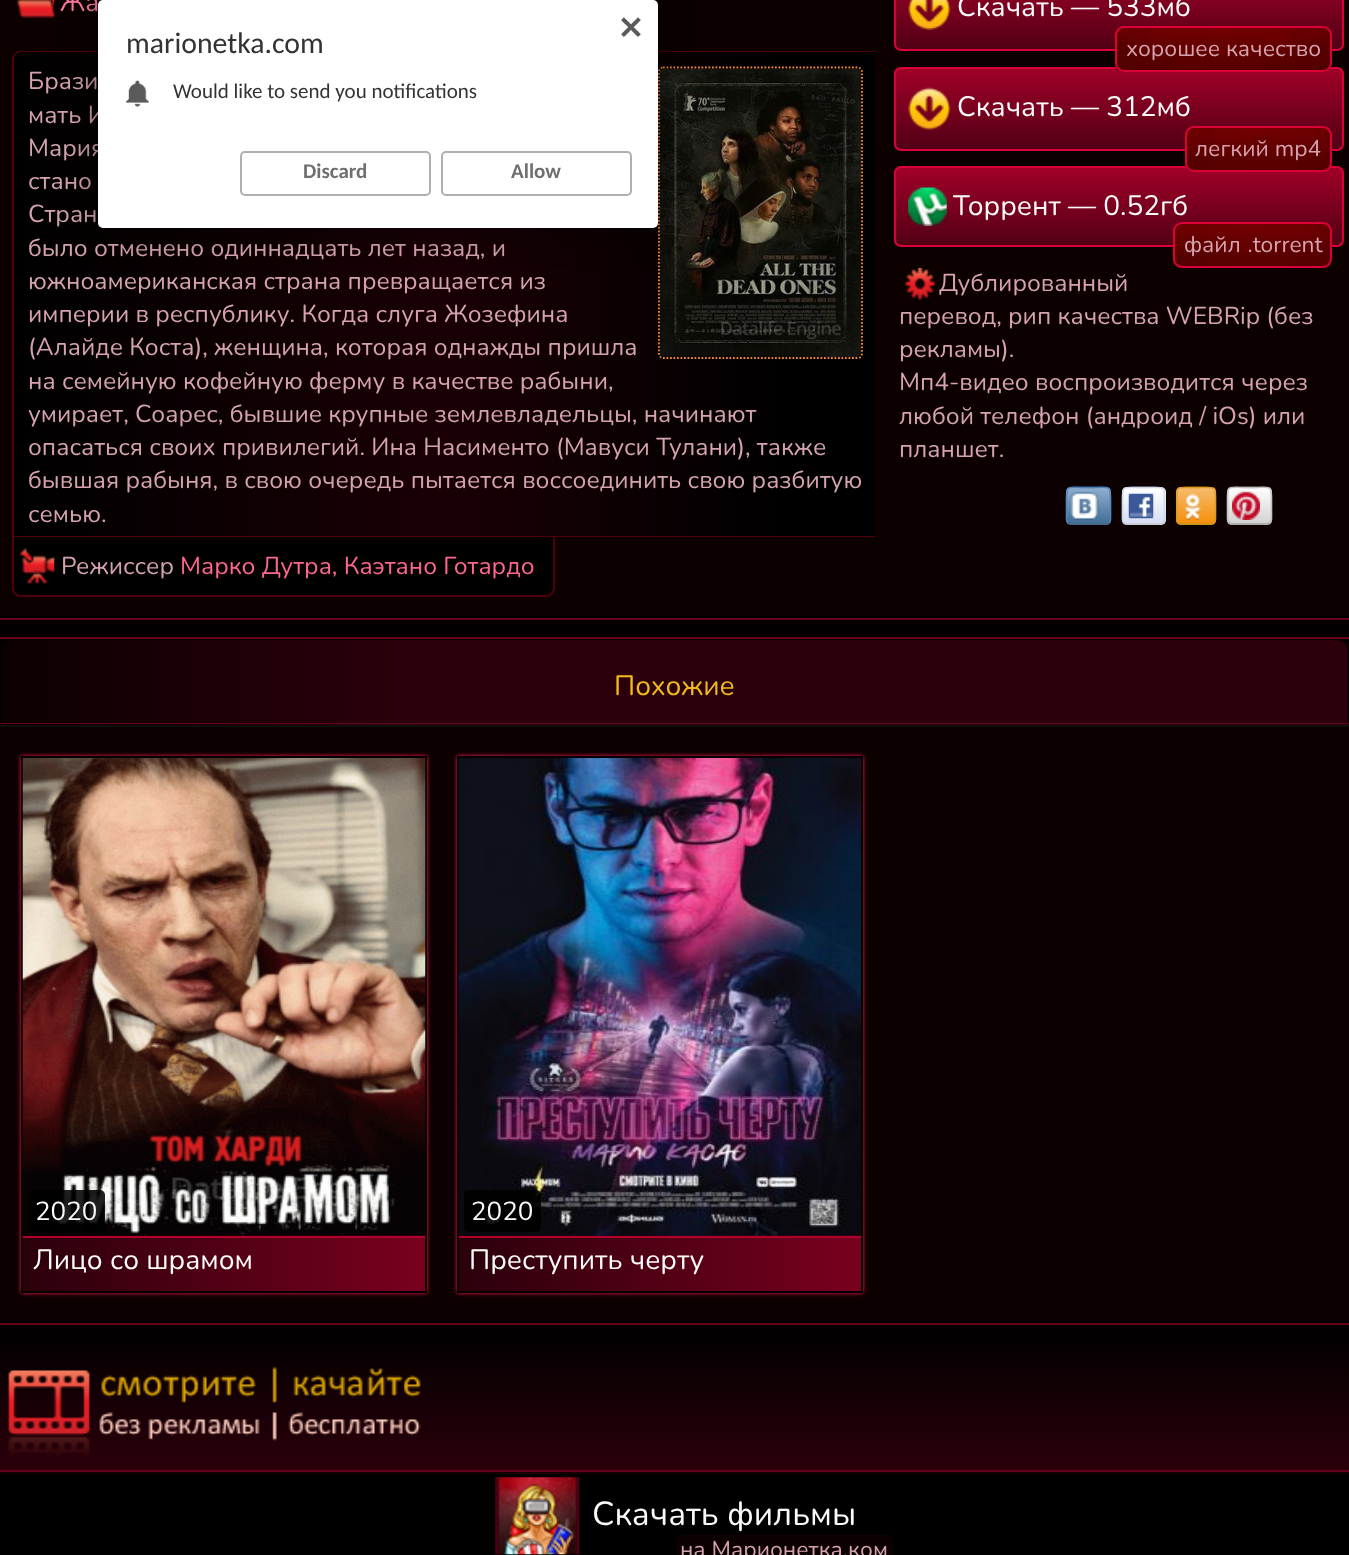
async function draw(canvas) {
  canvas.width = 1349
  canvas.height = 1555
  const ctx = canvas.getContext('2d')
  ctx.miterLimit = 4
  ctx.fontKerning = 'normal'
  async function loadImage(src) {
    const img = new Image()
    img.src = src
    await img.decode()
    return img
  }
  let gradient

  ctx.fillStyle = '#040001'
  ctx.fillRect(0, 0, 1349, 1555)
  ctx.fillStyle = '#66001a'
  ctx.fillRect(0, 618, 1349, 2)
  ctx.fillStyle = '#0c0000'
  ctx.fillRect(0, 0, 1349, 616)
  ctx.fillStyle = '#000'
  ctx.fillRect(0, 616, 1349, 2)
  ctx.drawImage(await loadImage('image0.png'), 17, 0, 38, 19)
  ctx.font = '26px Nunito'
  ctx.fillStyle = '#ff7a9c'
  ctx.fillText('Жа', 60, 11)
  ctx.save()
  ctx.beginPath()
  ctx.roundRect(12, 51, 863, 486, [9, 0, 0, 0])
  ctx.clip()
  gradient = ctx.createLinearGradient(14, 294, 875, 294)
  gradient.addColorStop(0, '#000')
  gradient.addColorStop(0.5, '#1a0006')
  gradient.addColorStop(0.9, '#000')
  ctx.fillStyle = gradient
  ctx.fillRect(14, 51, 861, 485)
  ctx.restore()
  ctx.fillStyle = '#500008'
  ctx.beginPath()
  ctx.moveTo(21, 51)
  ctx.lineTo(875, 51)
  ctx.lineTo(875, 537)
  ctx.lineTo(12, 537)
  ctx.lineTo(12, 60)
  ctx.bezierCurveTo(12, 55, 16, 51, 21, 51)
  ctx.closePath()
  ctx.moveTo(21, 52)
  ctx.lineTo(875, 52)
  ctx.lineTo(875, 536)
  ctx.lineTo(14, 536)
  ctx.lineTo(14, 60)
  ctx.bezierCurveTo(14, 56, 17, 52, 21, 52)
  ctx.closePath()
  ctx.fill('evenodd')
  ctx.beginPath()
  ctx.moveTo(663, 67.5)
  ctx.lineTo(857.5, 67.5)
  ctx.bezierCurveTo(860, 67.5, 862, 69.5, 862, 72)
  ctx.lineTo(862, 353.5)
  ctx.bezierCurveTo(862, 356, 860, 358, 857.5, 358)
  ctx.lineTo(663, 358)
  ctx.bezierCurveTo(661, 358, 659, 356, 659, 353.5)
  ctx.lineTo(659, 72)
  ctx.bezierCurveTo(659, 69.5, 661, 67.5, 663, 67.5)
  ctx.closePath()
  ctx.strokeStyle = '#ff8a3c'
  ctx.lineWidth = 1.8
  ctx.setLineDash([1.75, 1.75])
  ctx.stroke()
  ctx.drawImage(await loadImage('image1.png'), 659, 68, 202, 290)
  ctx.font = '24.5px Nunito'
  ctx.fillStyle = '#d5a3af'
  ctx.fillText('Брази', 28, 89)
  ctx.fillText('мать И', 28, 123)
  ctx.fillText('Мария', 28, 156)
  ctx.fillText('стано', 28, 189)
  ctx.fillText('Стран', 28, 222)
  ctx.fillText('было отменено одиннадцать лет назад, и', 28, 256)
  ctx.fillText('южноамериканская страна превращается из', 28, 289)
  ctx.fillText('империи в республику. Когда слуга Жозефина', 28, 322)
  ctx.fillText('(Алайде Коста), женщина, которая однажды пришла', 28, 355)
  ctx.fillText('на семейную кофейную ферму в качестве рабыни,', 28, 389)
  ctx.fillText('умирает, Соарес, бывшие крупные землевладельцы, начинают', 28, 422)
  ctx.fillText('опасаться своих привилегий. Ина Насименто (Мавуси Тулани), также', 28, 455)
  ctx.fillText('бывшая рабыня, в свою очередь пытается воссоединить свою разбитую', 28, 488)
  ctx.fillText('семью.', 28, 522)
  ctx.fillStyle = '#000'
  ctx.beginPath()
  ctx.roundRect(12, 537, 543, 60, [0, 0, 9, 9])
  ctx.fill()
  ctx.drawImage(await loadImage('image2.png'), 19, 548, 36, 36)
  ctx.fillStyle = '#500008'
  ctx.beginPath()
  ctx.moveTo(12, 537)
  ctx.lineTo(555, 537)
  ctx.lineTo(555, 588)
  ctx.bezierCurveTo(555, 593, 551, 597, 546, 597)
  ctx.lineTo(21, 597)
  ctx.bezierCurveTo(16, 597, 12, 593, 12, 588)
  ctx.closePath()
  ctx.moveTo(14, 537)
  ctx.lineTo(553, 537)
  ctx.lineTo(553, 588)
  ctx.bezierCurveTo(553, 592, 550, 595, 546, 595)
  ctx.lineTo(21, 595)
  ctx.bezierCurveTo(17, 595, 14, 592, 14, 588)
  ctx.closePath()
  ctx.fill('evenodd')
  ctx.fillStyle = '#d5a3af'
  ctx.fillText('Режиссер', 61, 574)
  ctx.fillStyle = '#ff668d'
  ctx.fillText('Марко Дутра, Каэтано Готардо', 180, 574)
  ctx.save()
  ctx.beginPath()
  ctx.roundRect(894, -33, 450, 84, 7)
  ctx.clip()
  gradient = ctx.createLinearGradient(1119, -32, 1119, 49)
  gradient.addColorStop(0, '#a10028')
  gradient.addColorStop(1, '#520015')
  ctx.fillStyle = gradient
  ctx.fillRect(894, 0, 450, 49)
  ctx.restore()
  ctx.beginPath()
  ctx.roundRect(895, -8, 448, 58, 6)
  ctx.strokeStyle = '#dc0038'
  ctx.lineWidth = 2
  ctx.setLineDash([])
  ctx.stroke()
  ctx.drawImage(await loadImage('image3.png'), 908, 0, 43, 30)
  ctx.font = '28px Nunito'
  ctx.fillStyle = '#fafafa'
  ctx.fillText('Скачать — 533мб', 957, 16)
  ctx.save()
  ctx.beginPath()
  ctx.roundRect(894, 67, 450, 84, 7)
  ctx.clip()
  gradient = ctx.createLinearGradient(1119, 68, 1119, 149)
  gradient.addColorStop(0, '#a10028')
  gradient.addColorStop(1, '#520015')
  ctx.fillStyle = gradient
  ctx.fillRect(894, 68, 450, 81)
  ctx.restore()
  ctx.beginPath()
  ctx.roundRect(895, 68, 448, 82, 6)
  ctx.stroke()
  ctx.drawImage(await loadImage('image4.png'), 1114, 28, 218, 44)
  ctx.beginPath()
  ctx.roundRect(1116, 27, 215, 44, 8)
  ctx.stroke()
  ctx.font = '22.75px Nunito'
  ctx.fillStyle = '#d5a3af'
  ctx.fillText('хорошее качество', 1126, 56)
  ctx.drawImage(await loadImage('image5.png'), 908, 87, 43, 43)
  ctx.font = '28px Nunito'
  ctx.fillStyle = '#fafafa'
  ctx.fillText('Скачать — 312мб', 957, 116)
  ctx.save()
  ctx.beginPath()
  ctx.roundRect(894, 166, 450, 81, 7)
  ctx.clip()
  gradient = ctx.createLinearGradient(1119, 168, 1119, 245)
  gradient.addColorStop(0, '#a10028')
  gradient.addColorStop(1, '#520015')
  ctx.fillStyle = gradient
  ctx.fillRect(894, 168, 450, 77)
  ctx.restore()
  ctx.beginPath()
  ctx.roundRect(895, 167, 448, 79, 6)
  ctx.stroke()
  ctx.drawImage(await loadImage('image6.png'), 1184, 128, 148, 44)
  ctx.beginPath()
  ctx.roundRect(1186, 127, 145, 44, 8)
  ctx.stroke()
  ctx.font = '22.75px Nunito'
  ctx.fillStyle = '#d5a3af'
  ctx.fillText('легкий mp4', 1195, 156)
  ctx.drawImage(await loadImage('image7.png'), 908, 187, 39, 39)
  ctx.font = '28px Nunito'
  ctx.fillStyle = '#fafafa'
  ctx.fillText('Торрент — 0.52гб', 953, 215)
  ctx.drawImage(await loadImage('image8.png'), 1172, 224, 160, 44)
  ctx.beginPath()
  ctx.roundRect(1174, 223, 157, 44, 8)
  ctx.stroke()
  ctx.wordSpacing = '1px'
  ctx.font = '22.75px Nunito'
  ctx.fillStyle = '#d5a3af'
  ctx.fillText('файл .torrent', 1184, 252)
  ctx.drawImage(await loadImage('image9.png'), 904, 268, 31, 32)
  ctx.wordSpacing = '0px'
  ctx.font = '24.5px Nunito'
  ctx.fillText('Дублированный', 939, 291)
  ctx.fillText('перевод, рип качества WEBRip (без', 899, 324)
  ctx.fillText('рекламы).', 899, 357)
  ctx.fillText('Мп4-видео воспроизводится через', 899, 390)
  ctx.fillText('любой телефон (андроид / iOs) или', 899, 424)
  ctx.fillText('планшет.', 899, 457)
  ctx.save()
  ctx.beginPath()
  ctx.roundRect(1066, 487, 45, 38, 5)
  ctx.clip()
  gradient = ctx.createLinearGradient(1089, 453, 1089, 488)
  gradient.addColorStop(0, '#8faecf')
  gradient.addColorStop(1, '#436f96')
  ctx.fillStyle = gradient
  ctx.fillRect(1066, 487, 45, 1)
  gradient = ctx.createLinearGradient(1089, 488, 1089, 523)
  gradient.addColorStop(0, '#8faecf')
  gradient.addColorStop(1, '#436f96')
  ctx.fillStyle = gradient
  ctx.fillRect(1066, 488, 45, 35)
  gradient = ctx.createLinearGradient(1089, 523, 1089, 558)
  gradient.addColorStop(0, '#8faecf')
  gradient.addColorStop(1, '#436f96')
  ctx.fillStyle = gradient
  ctx.fillRect(1066, 523, 45, 2)
  ctx.restore()
  ctx.beginPath()
  ctx.moveTo(1109, 523)
  ctx.bezierCurveTo(1108.5, 523.5, 1107, 524, 1106, 524)
  ctx.lineTo(1071, 524)
  ctx.bezierCurveTo(1070, 524, 1068.5, 523.5, 1068, 523)
  ctx.strokeStyle = '#34587fcc'
  ctx.lineWidth = 1.8
  ctx.stroke()
  ctx.beginPath()
  ctx.moveTo(1068, 523)
  ctx.bezierCurveTo(1066, 521, 1066.5, 517.5, 1066.5, 515)
  ctx.lineTo(1066.5, 506)
  ctx.bezierCurveTo(1066.5, 483, 1064.5, 487.5, 1088.5, 487.5)
  ctx.bezierCurveTo(1112.5, 487.5, 1110.5, 483, 1110.5, 506)
  ctx.lineTo(1110.5, 515)
  ctx.bezierCurveTo(1110.5, 517.5, 1111, 521, 1109, 523)
  ctx.strokeStyle = '#4e83c1cc'
  ctx.stroke()
  ctx.drawImage(await loadImage('image10.png'), 1069, 492, 30, 28)
  ctx.save()
  ctx.beginPath()
  ctx.roundRect(1122, 487, 44, 38, 5)
  ctx.clip()
  gradient = ctx.createLinearGradient(1144, 453, 1144, 488)
  gradient.addColorStop(0, '#fff')
  gradient.addColorStop(1, '#d8def4')
  ctx.fillStyle = gradient
  ctx.fillRect(1122, 487, 44, 1)
  gradient = ctx.createLinearGradient(1144, 488, 1144, 523)
  gradient.addColorStop(0, '#fff')
  gradient.addColorStop(1, '#d8def4')
  ctx.fillStyle = gradient
  ctx.fillRect(1122, 488, 44, 35)
  gradient = ctx.createLinearGradient(1144, 523, 1144, 558)
  gradient.addColorStop(0, '#fff')
  gradient.addColorStop(1, '#d8def4')
  ctx.fillStyle = gradient
  ctx.fillRect(1122, 523, 44, 2)
  ctx.restore()
  ctx.beginPath()
  ctx.moveTo(1163.5, 523)
  ctx.bezierCurveTo(1162.5, 523.5, 1161.5, 524, 1160, 524)
  ctx.lineTo(1127, 524)
  ctx.bezierCurveTo(1126, 524, 1124.5, 523.5, 1124, 523)
  ctx.strokeStyle = '#bdc2cbcc'
  ctx.stroke()
  ctx.beginPath()
  ctx.moveTo(1124, 523)
  ctx.bezierCurveTo(1122, 521, 1122.5, 517.5, 1122.5, 515)
  ctx.lineTo(1122.5, 506)
  ctx.bezierCurveTo(1122.5, 483.5, 1120.5, 487.5, 1143.5, 487.5)
  ctx.bezierCurveTo(1167, 487.5, 1164.5, 483.5, 1164.5, 506)
  ctx.lineTo(1164.5, 515)
  ctx.bezierCurveTo(1164.5, 517.5, 1165.5, 521, 1163.5, 523)
  ctx.strokeStyle = '#cad4e7cc'
  ctx.stroke()
  ctx.drawImage(await loadImage('image11.png'), 1128, 493, 26, 26)
  ctx.save()
  ctx.beginPath()
  ctx.roundRect(1176, 487, 40, 38, 5)
  ctx.clip()
  gradient = ctx.createLinearGradient(1196, 453, 1196, 488)
  gradient.addColorStop(0, '#f6bb6d')
  gradient.addColorStop(1, '#f6900b')
  ctx.fillStyle = gradient
  ctx.fillRect(1176, 487, 40, 1)
  gradient = ctx.createLinearGradient(1196, 488, 1196, 523)
  gradient.addColorStop(0, '#f6bb6d')
  gradient.addColorStop(1, '#f6900b')
  ctx.fillStyle = gradient
  ctx.fillRect(1176, 488, 40, 35)
  gradient = ctx.createLinearGradient(1196, 523, 1196, 558)
  gradient.addColorStop(0, '#f6bb6d')
  gradient.addColorStop(1, '#f6900b')
  ctx.fillStyle = gradient
  ctx.fillRect(1176, 523, 40, 2)
  ctx.restore()
  ctx.beginPath()
  ctx.moveTo(1214, 523)
  ctx.bezierCurveTo(1213.5, 523.5, 1212, 524, 1211, 524)
  ctx.lineTo(1181, 524)
  ctx.bezierCurveTo(1180, 524, 1179, 523.5, 1178, 523)
  ctx.strokeStyle = '#c58907cc'
  ctx.stroke()
  ctx.beginPath()
  ctx.moveTo(1178, 523)
  ctx.bezierCurveTo(1176, 521, 1177, 517.5, 1177, 515)
  ctx.lineTo(1177, 506)
  ctx.bezierCurveTo(1177, 484, 1174, 487.5, 1196, 487.5)
  ctx.bezierCurveTo(1218, 487.5, 1215.5, 484, 1215.5, 506)
  ctx.lineTo(1215.5, 515)
  ctx.bezierCurveTo(1215.5, 517.5, 1216, 521, 1214, 523)
  ctx.strokeStyle = '#d99a26cc'
  ctx.stroke()
  ctx.drawImage(await loadImage('image12.png'), 1184, 493, 17, 27)
  ctx.save()
  ctx.beginPath()
  ctx.roundRect(1227, 487, 45, 38, 5)
  ctx.clip()
  gradient = ctx.createLinearGradient(1250, 453, 1250, 488)
  gradient.addColorStop(0, '#fefefe')
  gradient.addColorStop(1, '#d3d3d3')
  ctx.fillStyle = gradient
  ctx.fillRect(1227, 487, 45, 1)
  gradient = ctx.createLinearGradient(1250, 488, 1250, 523)
  gradient.addColorStop(0, '#fefefe')
  gradient.addColorStop(1, '#d3d3d3')
  ctx.fillStyle = gradient
  ctx.fillRect(1227, 488, 45, 35)
  gradient = ctx.createLinearGradient(1250, 523, 1250, 558)
  gradient.addColorStop(0, '#fefefe')
  gradient.addColorStop(1, '#d3d3d3')
  ctx.fillStyle = gradient
  ctx.fillRect(1227, 523, 45, 2)
  ctx.restore()
  ctx.beginPath()
  ctx.moveTo(1270, 523)
  ctx.bezierCurveTo(1269.5, 523.5, 1268, 524, 1267, 524)
  ctx.lineTo(1232, 524)
  ctx.bezierCurveTo(1231, 524, 1229.5, 523.5, 1229, 523)
  ctx.strokeStyle = '#999999cc'
  ctx.stroke()
  ctx.beginPath()
  ctx.moveTo(1229, 523)
  ctx.bezierCurveTo(1227, 521, 1227.5, 517.5, 1227.5, 515)
  ctx.lineTo(1227.5, 506)
  ctx.bezierCurveTo(1227.5, 483, 1225.5, 487.5, 1249.5, 487.5)
  ctx.bezierCurveTo(1273.5, 487.5, 1271.5, 483, 1271.5, 506)
  ctx.lineTo(1271.5, 515)
  ctx.bezierCurveTo(1271.5, 517.5, 1272, 521, 1270, 523)
  ctx.strokeStyle = '#bababacc'
  ctx.stroke()
  ctx.drawImage(await loadImage('image13.png'), 1232, 491, 28, 29)
  ctx.fillStyle = '#0000008a'
  ctx.filter = 'blur(17.5px)'
  ctx.beginPath()
  ctx.roundRect(98, 0, 560, 228, 5)
  ctx.fill()
  ctx.filter = 'none'
  ctx.fillStyle = '#fff'
  ctx.beginPath()
  ctx.roundRect(98, 0, 560, 228, 5)
  ctx.fill()
  ctx.drawImage(await loadImage('image14.png'), 621, 17, 20, 20)
  ctx.font = '29.75px Carlito'
  ctx.fillStyle = '#333'
  ctx.fillText('marionetka.com', 126, 53)
  ctx.drawImage(await loadImage('image15.png'), 126, 80, 23, 27)
  ctx.font = '21px Carlito'
  ctx.fillText('Would like to send you notifications', 173, 98)
  ctx.beginPath()
  ctx.roundRect(241, 152, 189, 43, 4)
  ctx.strokeStyle = '#afafaf'
  ctx.lineWidth = 2
  ctx.stroke()
  ctx.font = 'bold 21px Carlito'
  ctx.fillStyle = '#6f6f6f'
  ctx.fillText('Discard', 303, 178)
  ctx.beginPath()
  ctx.roundRect(442, 152, 189, 43, 4)
  ctx.stroke()
  ctx.fillText('Allow', 511, 178)
  ctx.fillStyle = '#66001a'
  ctx.fillRect(0, 637, 1349, 2)
  ctx.fillRect(0, 1323, 1349, 2)
  ctx.save()
  ctx.beginPath()
  ctx.roundRect(0, 639, 1349, 86, [12, 12, 0, 0])
  ctx.clip()
  gradient = ctx.createLinearGradient(1.8, 682, -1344, 682)
  gradient.addColorStop(0.7, '#2b000b')
  gradient.addColorStop(1, '#0c0000')
  ctx.fillStyle = gradient
  ctx.fillRect(0, 639, 2, 86)
  gradient = ctx.createLinearGradient(1348, 682, 1.8, 682)
  gradient.addColorStop(0.7, '#2b000b')
  gradient.addColorStop(1, '#0c0000')
  ctx.fillStyle = gradient
  ctx.fillRect(2, 639, 1346, 86)
  gradient = ctx.createLinearGradient(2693, 682, 1348, 682)
  gradient.addColorStop(0.7, '#2b000b')
  gradient.addColorStop(1, '#0c0000')
  ctx.fillStyle = gradient
  ctx.fillRect(1348, 639, 1, 86)
  ctx.restore()
  ctx.fillStyle = '#000'
  ctx.beginPath()
  ctx.moveTo(12, 639)
  ctx.bezierCurveTo(9, 639, 6, 640, 4, 642)
  ctx.lineTo(5, 643)
  ctx.bezierCurveTo(6, 641, 9, 640, 12, 640)
  ctx.lineTo(1337, 640)
  ctx.bezierCurveTo(1340, 640, 1343, 641, 1345, 643)
  ctx.lineTo(1346, 642)
  ctx.bezierCurveTo(1344, 640, 1340, 639, 1337, 639)
  ctx.closePath()
  ctx.fill()
  ctx.beginPath()
  ctx.moveTo(1348, 723)
  ctx.lineTo(1349, 724)
  ctx.lineTo(1349, 651)
  ctx.bezierCurveTo(1349, 648, 1348, 644, 1346, 642)
  ctx.lineTo(1345, 643)
  ctx.bezierCurveTo(1347, 645, 1348, 648, 1348, 651)
  ctx.closePath()
  ctx.fill()
  ctx.fillStyle = '#660023'
  ctx.beginPath()
  ctx.moveTo(1349, 724)
  ctx.lineTo(0, 724)
  ctx.lineTo(2, 722)
  ctx.lineTo(2, 723)
  ctx.lineTo(1348, 723)
  ctx.closePath()
  ctx.fill()
  ctx.fillStyle = '#000'
  ctx.beginPath()
  ctx.moveTo(0, 651)
  ctx.lineTo(0, 724)
  ctx.lineTo(2, 722)
  ctx.lineTo(2, 651)
  ctx.bezierCurveTo(2, 648, 3, 645, 5, 643)
  ctx.lineTo(4, 642)
  ctx.bezierCurveTo(1, 644, 0, 647, 0, 651)
  ctx.closePath()
  ctx.fill()
  ctx.font = '28px Nunito'
  ctx.fillStyle = '#f0ba1d'
  ctx.fillText('Похожие', 614, 695)
  ctx.fillStyle = '#0c0000'
  ctx.fillRect(0, 727, 1349, 594)
  ctx.fillStyle = '#0e0e0e'
  ctx.fillRect(0, 725, 1349, 2)
  ctx.fillStyle = '#000'
  ctx.fillRect(0, 1321, 1349, 2)
  ctx.fillStyle = '#ff1751'
  ctx.filter = 'blur(2px)'
  ctx.beginPath()
  ctx.rect(21, 756, 406, 537)
  ctx.fill()
  ctx.filter = 'none'
  gradient = ctx.createLinearGradient(23, 1025, 425, 1025)
  gradient.addColorStop(0, '#2b000b')
  gradient.addColorStop(1, '#79001e')
  ctx.fillStyle = gradient
  ctx.fillRect(23, 1235, 402, 56)
  ctx.strokeStyle = '#040001'
  ctx.strokeRect(22, 757, 404, 535)
  ctx.fillStyle = '#b4002d'
  ctx.fillRect(23, 1236, 402, 2)
  ctx.drawImage(await loadImage('image16.png'), 22, 758, 404, 478)
  ctx.fillStyle = '#000000de'
  ctx.beginPath()
  ctx.roundRect(28, 1190, 77, 42, 5)
  ctx.fill()
  ctx.font = '26px Nunito'
  ctx.fillStyle = '#fafafa'
  ctx.fillText('2020', 35, 1220)
  ctx.font = '28px Nunito'
  ctx.fillText('Лицо со шрамом', 33, 1269)
  ctx.fillStyle = '#ff1751'
  ctx.filter = 'blur(2px)'
  ctx.beginPath()
  ctx.rect(457, 756, 406, 537)
  ctx.fill()
  ctx.filter = 'none'
  gradient = ctx.createLinearGradient(459, 1025, 861, 1025)
  gradient.addColorStop(0, '#2b000b')
  gradient.addColorStop(1, '#79001e')
  ctx.fillStyle = gradient
  ctx.fillRect(459, 1235, 402, 56)
  ctx.strokeRect(458, 757, 404, 535)
  ctx.fillStyle = '#b4002d'
  ctx.fillRect(459, 1236, 402, 2)
  ctx.drawImage(await loadImage('image17.png'), 458, 758, 403, 478)
  ctx.fillStyle = '#000000de'
  ctx.beginPath()
  ctx.roundRect(464, 1190, 77, 42, 5)
  ctx.fill()
  ctx.font = '26px Nunito'
  ctx.fillStyle = '#fafafa'
  ctx.fillText('2020', 471, 1220)
  ctx.font = '28px Nunito'
  ctx.fillText('Преступить черту', 469, 1269)
  gradient = ctx.createLinearGradient(675, 1342, 675, 1470)
  gradient.addColorStop(0, '#040001')
  gradient.addColorStop(1, '#2b000b')
  ctx.fillStyle = gradient
  ctx.fillRect(0, 1350, 1349, 120)
  ctx.fillStyle = '#66001a'
  ctx.fillRect(0, 1470, 1349, 2)
  ctx.drawImage(await loadImage('image18.png'), 7, 1366, 414, 91)
  ctx.fillStyle = '#000'
  ctx.fillRect(0, 1474, 1349, 81)
  ctx.fillStyle = '#150002'
  ctx.fillRect(0, 1472, 1349, 2)
  ctx.drawImage(await loadImage('image19.png'), 495, 1477, 85, 78)
  ctx.font = '33.25px Nunito'
  ctx.fillStyle = '#fafafa'
  ctx.fillText('Скачать фильмы', 592, 1525)
  ctx.fillStyle = '#0d0003'
  ctx.beginPath()
  ctx.roundRect(676, 1535, 217, 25, 5)
  ctx.fill()
  ctx.font = '22.75px Nunito'
  ctx.fillStyle = '#d5a3af'
  ctx.fillText('на Марионетка.ком', 680, 1557)
}

draw(document.querySelector('canvas'))
